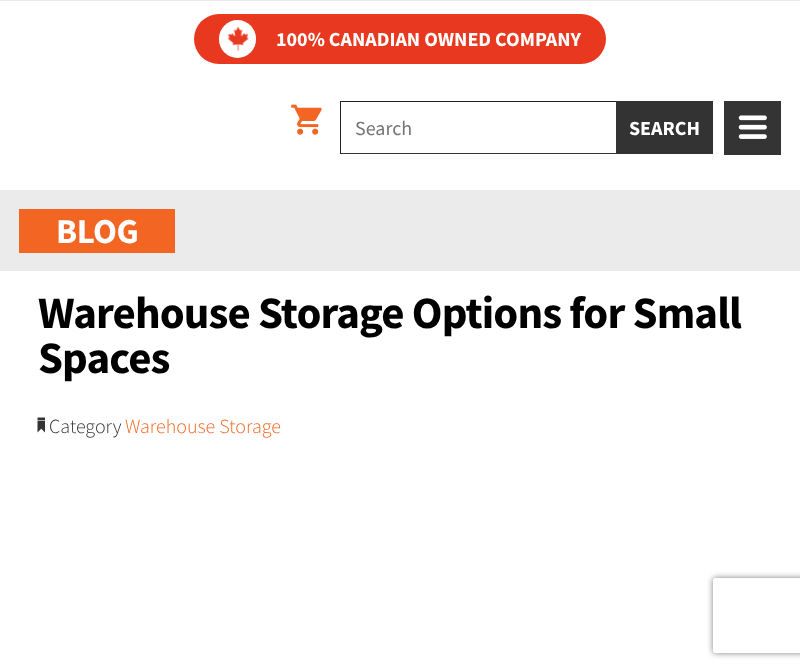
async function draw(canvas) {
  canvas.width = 800
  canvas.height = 669
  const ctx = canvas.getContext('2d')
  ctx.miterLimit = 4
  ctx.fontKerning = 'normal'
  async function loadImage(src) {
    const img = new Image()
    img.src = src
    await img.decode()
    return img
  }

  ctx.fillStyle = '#fff'
  ctx.fillRect(0, 0, 800, 669)
  ctx.fillStyle = '#ebebeb'
  ctx.fillRect(0, 0, 800, 1)
  ctx.fillStyle = '#e83920'
  ctx.beginPath()
  ctx.roundRect(194, 14, 412, 50, 25)
  ctx.fill()
  ctx.fillStyle = '#fff'
  ctx.beginPath()
  ctx.roundRect(219, 20, 37, 38, 18.5)
  ctx.fill()
  ctx.drawImage(await loadImage('image0.png'), 227, 26, 22, 25)
  ctx.font = 'bold 20px Source Sans Pro'
  ctx.fillText('100% CANADIAN OWNED COMPANY', 276, 46)
  ctx.drawImage(await loadImage('image1.png'), 291, 104, 31, 31)
  ctx.fillStyle = '#222'
  ctx.fillRect(340, 101, 280, 1)
  ctx.fillStyle = '#333'
  ctx.fillRect(340, 153, 280, 1)
  ctx.fillStyle = '#222'
  ctx.fillRect(340, 101, 1, 53)
  ctx.font = '20px Source Sans Pro'
  ctx.fillStyle = '#757575'
  ctx.fillText('Search', 355, 135)
  ctx.fillStyle = '#333'
  ctx.fillRect(616, 101, 97, 53)
  ctx.font = 'bold 20px Source Sans Pro'
  ctx.fillStyle = '#fff'
  ctx.fillText('SEARCH', 629, 135)
  ctx.fillStyle = '#353434'
  ctx.fillRect(724, 101, 57, 54)
  ctx.drawImage(await loadImage('image2.png'), 738, 115, 29, 24)
  ctx.fillStyle = '#ebebeb'
  ctx.fillRect(0, 190, 800, 81)
  ctx.fillStyle = '#f26522'
  ctx.fillRect(19, 209, 156, 44)
  ctx.letterSpacing = '-0.5px'
  ctx.font = 'bold 35px Source Sans Pro'
  ctx.fillStyle = '#fff'
  ctx.fillText('BLOG', 56, 243)
  ctx.letterSpacing = '-0.9px'
  ctx.font = 'bold 45px Source Sans Pro'
  ctx.fillStyle = '#000'
  ctx.fillText('Warehouse Storage Options for Small', 38, 328)
  ctx.fillText('Spaces', 38, 373)
  ctx.drawImage(await loadImage('image3.png'), 37, 417, 8, 16)
  ctx.letterSpacing = '0px'
  ctx.font = '300 20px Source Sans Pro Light'
  ctx.fillStyle = '#333'
  ctx.fillText('Category', 49, 433)
  ctx.fillStyle = '#f26522'
  ctx.fillText('Warehouse Storage', 125, 433)
  ctx.save()
  ctx.beginPath()
  ctx.moveTo(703, 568)
  ctx.lineTo(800, 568)
  ctx.lineTo(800, 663)
  ctx.lineTo(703, 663)
  ctx.closePath()
  ctx.moveTo(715.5, 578)
  ctx.lineTo(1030.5, 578)
  ctx.bezierCurveTo(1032, 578, 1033, 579, 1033, 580.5)
  ctx.lineTo(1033, 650.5)
  ctx.bezierCurveTo(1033, 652, 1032, 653, 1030.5, 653)
  ctx.lineTo(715.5, 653)
  ctx.bezierCurveTo(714, 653, 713, 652, 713, 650.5)
  ctx.lineTo(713, 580.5)
  ctx.bezierCurveTo(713, 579, 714, 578, 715.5, 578)
  ctx.closePath()
  ctx.clip('evenodd')
  ctx.fillStyle = '#808080'
  ctx.filter = 'blur(3px)'
  ctx.beginPath()
  ctx.roundRect(713, 578, 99, 75, 2.5)
  ctx.fill()
  ctx.filter = 'none'
  ctx.restore()
}

draw(document.querySelector('canvas'))
